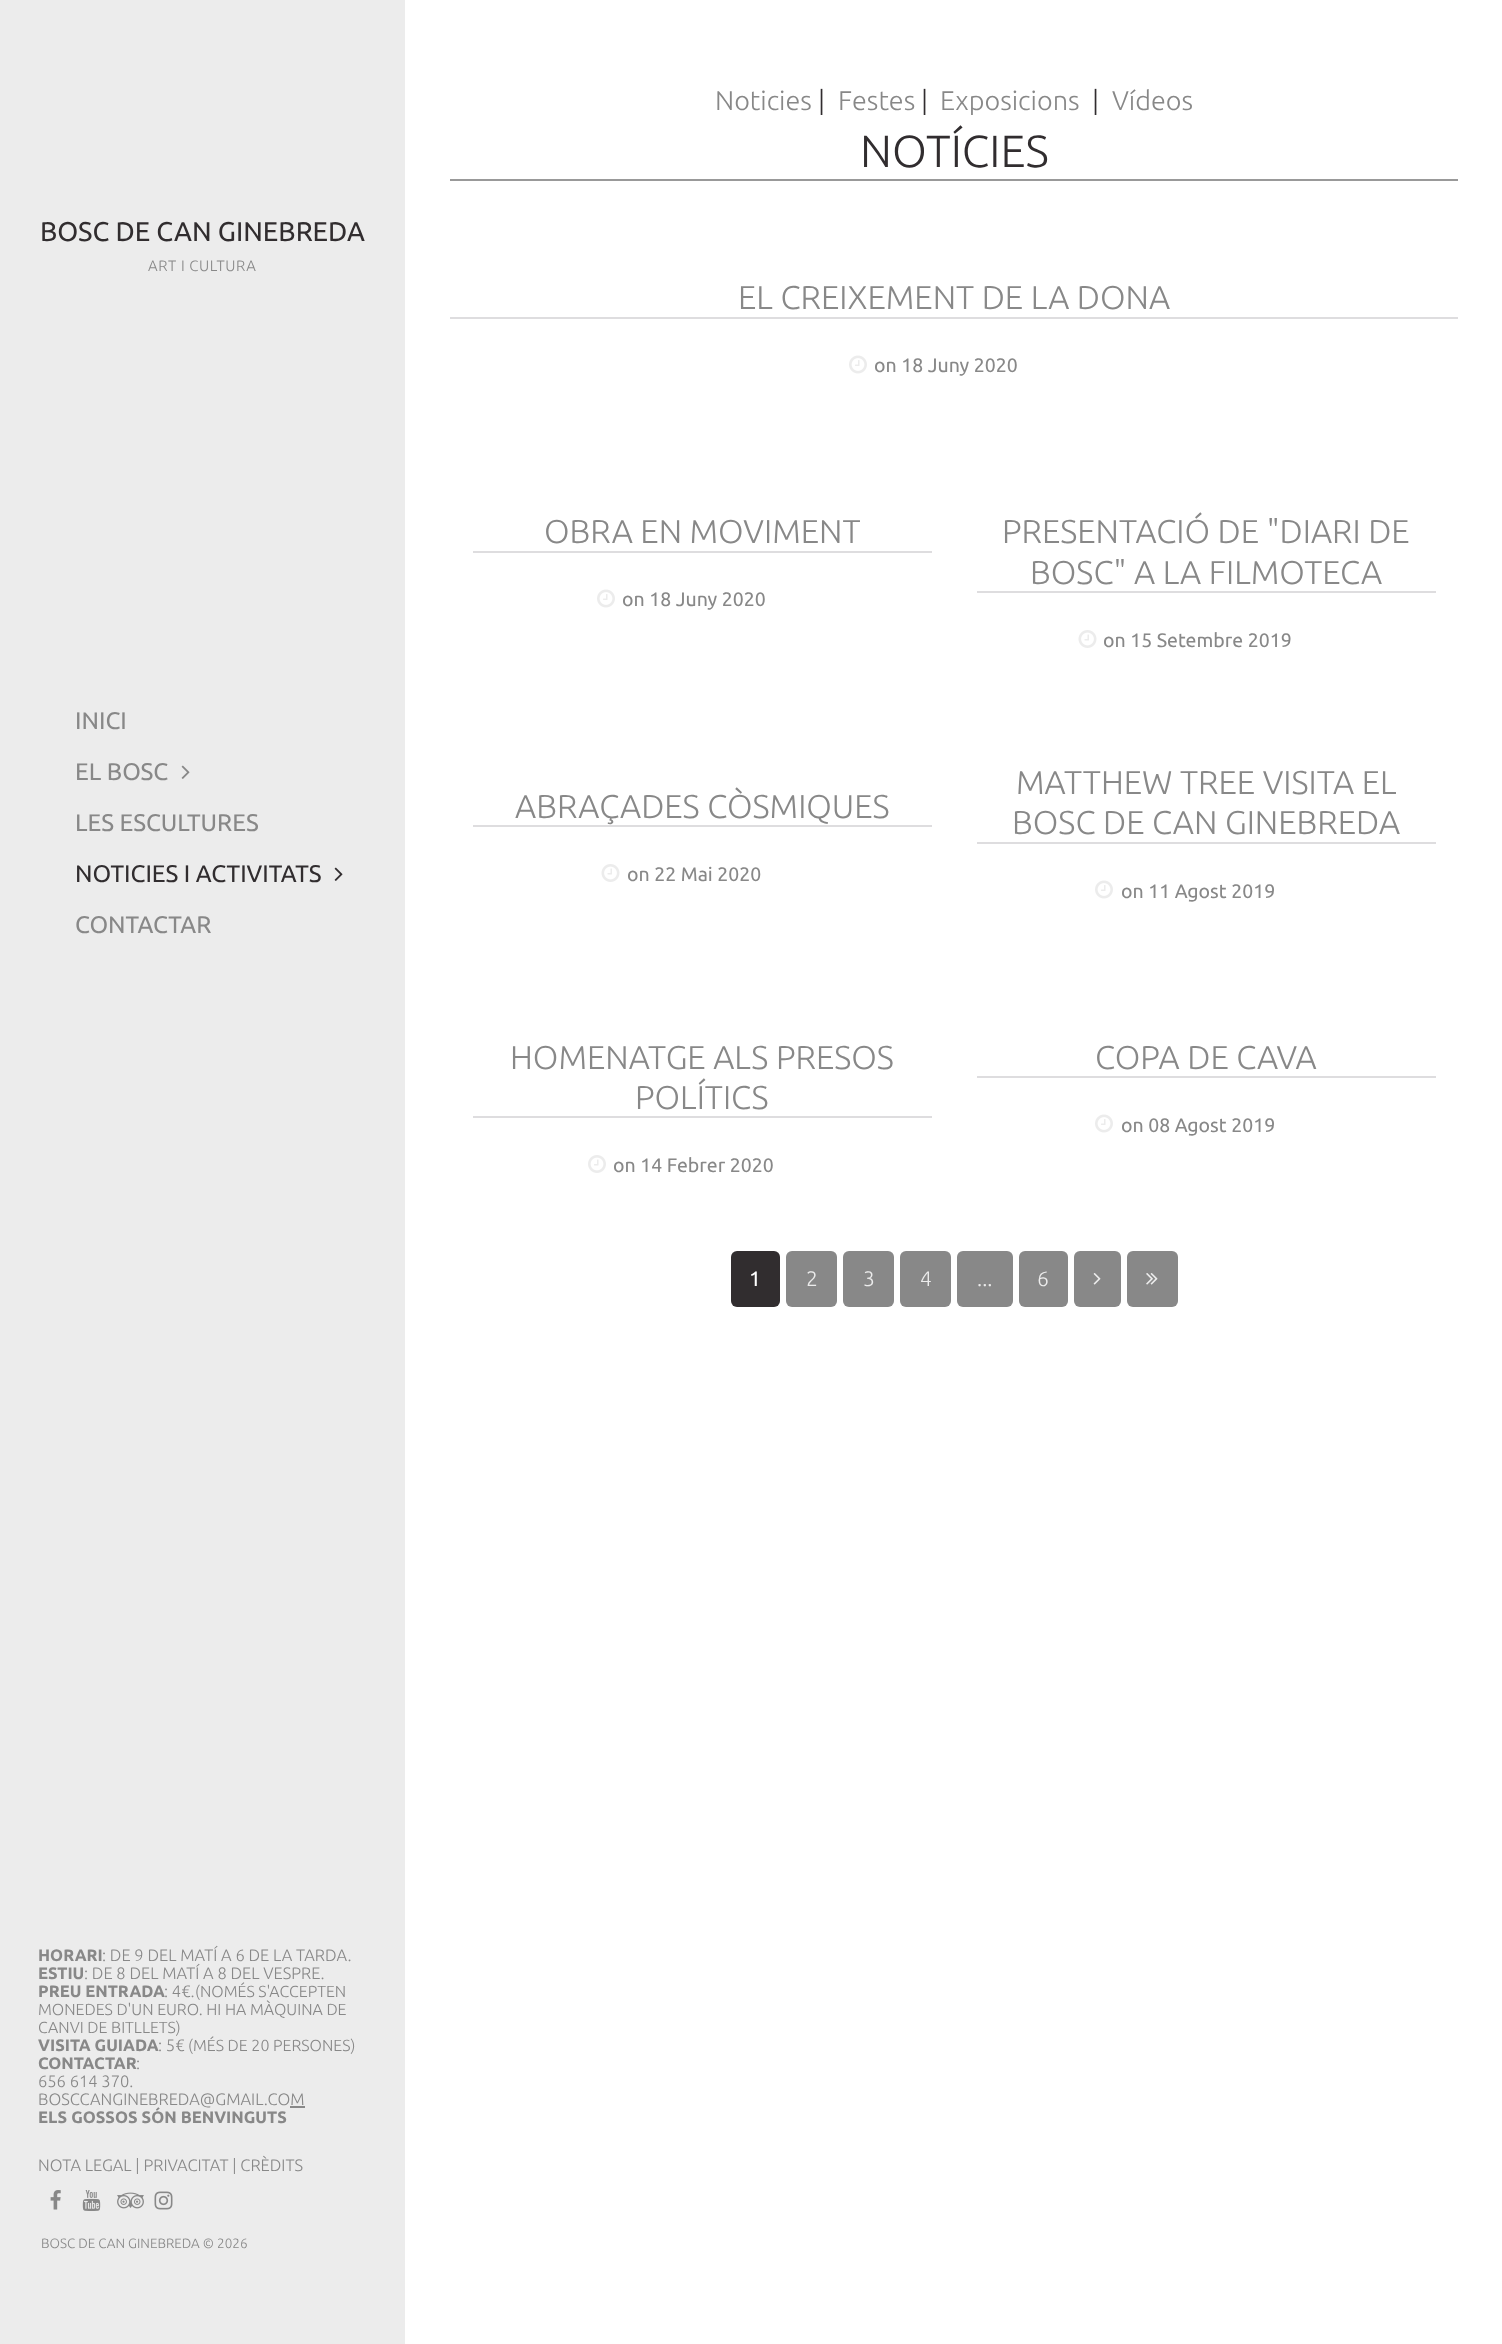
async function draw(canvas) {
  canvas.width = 1502
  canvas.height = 2344
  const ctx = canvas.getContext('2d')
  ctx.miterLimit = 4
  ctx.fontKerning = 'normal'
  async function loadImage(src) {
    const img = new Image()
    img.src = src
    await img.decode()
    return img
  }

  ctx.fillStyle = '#fff'
  ctx.fillRect(0, 0, 1502, 2344)
  ctx.fillStyle = '#ececec'
  ctx.fillRect(0, 0, 405, 2344)
  ctx.font = '27px Ubuntu'
  ctx.fillStyle = '#312d2f'
  ctx.fillText('BOSC DE C', 40, 241)
  ctx.fillText('AN GINEBRED', 174, 241)
  ctx.fillText('A', 347, 241)
  ctx.letterSpacing = '0.6px'
  ctx.font = '300 15px Ubuntu'
  ctx.fillStyle = '#888'
  ctx.fillText('ART I CULTURA', 148, 271)
  ctx.letterSpacing = '0px'
  ctx.font = '24px Ubuntu'
  ctx.fillText('INICI', 75, 729)
  ctx.fillText('EL BOSC', 75, 780)
  ctx.drawImage(await loadImage('image0.png'), 181, 765, 9, 14)
  ctx.fillText('LES ESCULTURES', 75, 831)
  ctx.fillStyle = '#312d2f'
  ctx.fillText('NOTICIES I ACTIVITATS', 75, 882)
  ctx.drawImage(await loadImage('image1.png'), 334, 867, 9, 14)
  ctx.fillStyle = '#888'
  ctx.fillText('CONTACTAR', 75, 933)
  ctx.font = 'bold 16.5px Ubuntu'
  ctx.fillText('HORARI', 38, 1961)
  ctx.font = '300 16.5px Ubuntu'
  ctx.fillText(': DE 9 DEL MATÍ A 6 DE LA TARDA.', 102, 1961)
  ctx.font = 'bold 16.5px Ubuntu'
  ctx.fillText('ESTIU', 38, 1979)
  ctx.font = '300 16.5px Ubuntu'
  ctx.fillText(': DE 8 DEL MATÍ A 8 DEL VESPRE.', 84, 1979)
  ctx.font = 'bold 16.5px Ubuntu'
  ctx.fillText('PREU ENTRADA', 38, 1997)
  ctx.font = '300 16.5px Ubuntu'
  ctx.fillText(': 4€.', 164, 1997)
  ctx.font = '300 16px Ubuntu'
  ctx.fillText('(NOMÉS S\'ACCEPTEN', 195, 1997)
  ctx.fillText('MONEDES D\'UN EURO. HI HA MÀQUINA DE', 38, 2015)
  ctx.fillText('CANVI DE BITLLETS)', 38, 2033)
  ctx.font = 'bold 16.5px Ubuntu'
  ctx.fillText('VISITA GUIADA', 38, 2051)
  ctx.font = '300 16.5px Ubuntu'
  ctx.fillText(': 5€', 158, 2051)
  ctx.font = '300 16px Ubuntu'
  ctx.fillText('(MÉS DE 20 PERSONES)', 188, 2051)
  ctx.font = 'bold 16.5px Ubuntu'
  ctx.fillText('CONTACTAR', 38, 2069)
  ctx.font = '300 16.5px Ubuntu'
  ctx.fillText(':', 136, 2069)
  ctx.fillText('656 614 370.', 38, 2087)
  ctx.fillText('BOSCCANGINEBREDA@GMAIL.COM', 38, 2105)
  ctx.font = 'bold 16.5px Ubuntu'
  ctx.fillText('ELS GOSSOS SÓN BENVINGUTS', 38, 2123)
  ctx.fillRect(290, 2106, 15, 2)
  ctx.font = '300 16.5px Ubuntu'
  ctx.fillText('NOTA LEGAL | PRIVACITAT | CRÈDITS', 38, 2171)
  ctx.drawImage(await loadImage('image2.png'), 50, 2190, 11, 20)
  ctx.drawImage(await loadImage('image3.png'), 82, 2190, 19, 21)
  ctx.drawImage(await loadImage('image4.png'), 117, 2192, 27, 17)
  ctx.drawImage(await loadImage('image5.png'), 154, 2191, 19, 19)
  ctx.font = '300 13.5px Ubuntu'
  ctx.fillText('BOSC DE CAN GINEBREDA © 2026', 41, 2248)
  ctx.font = '300 27px Ubuntu'
  ctx.fillText('Noticies', 715, 110)
  ctx.fillStyle = '#312d2f'
  ctx.fillText('|', 818, 110)
  ctx.fillStyle = '#888'
  ctx.fillText('Festes', 838, 110)
  ctx.fillStyle = '#312d2f'
  ctx.fillText('|', 921, 110)
  ctx.fillStyle = '#888'
  ctx.fillText('Exposicions', 940, 110)
  ctx.fillStyle = '#312d2f'
  ctx.fillText('|', 1092, 110)
  ctx.fillStyle = '#888'
  ctx.fillText('Vídeos', 1112, 110)
  ctx.fillStyle = '#999'
  ctx.fillRect(450, 179, 1008, 2)
  ctx.font = '300 45px Ubuntu'
  ctx.fillStyle = '#312d2f'
  ctx.fillText('NOTÍCIES', 860, 167)
  ctx.fillStyle = '#dedddf'
  ctx.fillRect(450, 317, 1008, 2)
  ctx.font = '300 33px Ubuntu'
  ctx.fillStyle = '#888'
  ctx.fillText('EL CREIXEMENT DE LA DONA', 738, 309)
  ctx.drawImage(await loadImage('image6.png'), 849, 355, 18, 19)
  ctx.font = '19.5px Ubuntu'
  ctx.fillText('on 18 Juny 2020', 874, 372)
  ctx.fillStyle = '#dedddf'
  ctx.fillRect(473, 551, 459, 2)
  ctx.font = '300 33px Ubuntu'
  ctx.fillStyle = '#888'
  ctx.fillText('OBRA EN MOVIMENT', 544, 543)
  ctx.drawImage(await loadImage('image6.png'), 597, 589, 18, 19)
  ctx.font = '19.5px Ubuntu'
  ctx.fillText('on 18 Juny 2020', 622, 606)
  ctx.fillStyle = '#dedddf'
  ctx.fillRect(977, 591, 459, 2)
  ctx.font = '300 33px Ubuntu'
  ctx.fillStyle = '#888'
  ctx.fillText('PRESENTACIÓ DE "DIARI DE', 1002, 543)
  ctx.fillText('BOSC" A LA FILMOTECA', 1030, 584)
  ctx.drawImage(await loadImage('image7.png'), 1078, 630, 19, 18)
  ctx.font = '19.5px Ubuntu'
  ctx.fillText('on 15 Setembre 2019', 1103, 647)
  ctx.fillStyle = '#dedddf'
  ctx.fillRect(473, 825, 459, 2)
  ctx.font = '300 33px Ubuntu'
  ctx.fillStyle = '#888'
  ctx.fillText('ABRAÇADES CÒSMIQUES', 515, 818)
  ctx.drawImage(await loadImage('image7.png'), 601, 864, 19, 18)
  ctx.font = '19.5px Ubuntu'
  ctx.fillText('on 22 Mai 2020', 627, 881)
  ctx.fillStyle = '#dedddf'
  ctx.fillRect(977, 842, 459, 2)
  ctx.font = '300 33px Ubuntu'
  ctx.fillStyle = '#888'
  ctx.fillText('MATTHEW TREE VISITA EL', 1016, 794)
  ctx.fillText('BOSC DE CAN GINEBREDA', 1012, 834)
  ctx.drawImage(await loadImage('image6.png'), 1095, 880, 18, 19)
  ctx.font = '19.5px Ubuntu'
  ctx.fillText('on 11 Agost 2019', 1121, 898)
  ctx.fillStyle = '#dedddf'
  ctx.fillRect(473, 1116, 459, 2)
  ctx.font = '300 33px Ubuntu'
  ctx.fillStyle = '#888'
  ctx.fillText('HOMENATGE ALS PRESOS', 510, 1069)
  ctx.fillText('POLÍTICS', 635, 1109)
  ctx.drawImage(await loadImage('image8.png'), 588, 1155, 18, 18)
  ctx.font = '19.5px Ubuntu'
  ctx.fillText('on 14 Febrer 2020', 613, 1172)
  ctx.fillStyle = '#dedddf'
  ctx.fillRect(977, 1076, 459, 2)
  ctx.font = '300 33px Ubuntu'
  ctx.fillStyle = '#888'
  ctx.fillText('COPA DE CAVA', 1095, 1069)
  ctx.drawImage(await loadImage('image6.png'), 1095, 1114, 18, 19)
  ctx.font = '19.5px Ubuntu'
  ctx.fillText('on 08 Agost 2019', 1121, 1132)
  ctx.fillStyle = '#312d2f'
  ctx.beginPath()
  ctx.roundRect(731, 1251, 49, 56, 6)
  ctx.fill()
  ctx.font = '21px Ubuntu'
  ctx.fillStyle = '#fff'
  ctx.fillText('1', 749, 1286)
  ctx.fillStyle = '#888'
  ctx.beginPath()
  ctx.roundRect(786, 1251, 51, 56, 6)
  ctx.fill()
  ctx.font = '300 21px Ubuntu'
  ctx.fillStyle = '#ececec'
  ctx.fillText('2', 806, 1286)
  ctx.fillStyle = '#888'
  ctx.beginPath()
  ctx.roundRect(843, 1251, 51, 56, 6)
  ctx.fill()
  ctx.fillStyle = '#ececec'
  ctx.fillText('3', 863, 1286)
  ctx.fillStyle = '#888'
  ctx.beginPath()
  ctx.roundRect(900, 1251, 51, 56, 6)
  ctx.fill()
  ctx.fillStyle = '#ececec'
  ctx.fillText('4', 920, 1286)
  ctx.fillStyle = '#888'
  ctx.beginPath()
  ctx.roundRect(957, 1251, 56, 56, 6)
  ctx.fill()
  ctx.fillStyle = '#ececec'
  ctx.fillText('...', 977, 1286)
  ctx.fillStyle = '#888'
  ctx.beginPath()
  ctx.roundRect(1019, 1251, 49, 56, 6)
  ctx.fill()
  ctx.fillStyle = '#ececec'
  ctx.fillText('6', 1037, 1286)
  ctx.fillStyle = '#888'
  ctx.beginPath()
  ctx.roundRect(1074, 1251, 47, 56, 6)
  ctx.fill()
  ctx.drawImage(await loadImage('image9.png'), 1093, 1273, 8, 12)
  ctx.beginPath()
  ctx.roundRect(1127, 1251, 51, 56, 6)
  ctx.fill()
  ctx.drawImage(await loadImage('image10.png'), 1146, 1273, 12, 12)
}

draw(document.querySelector('canvas'))
